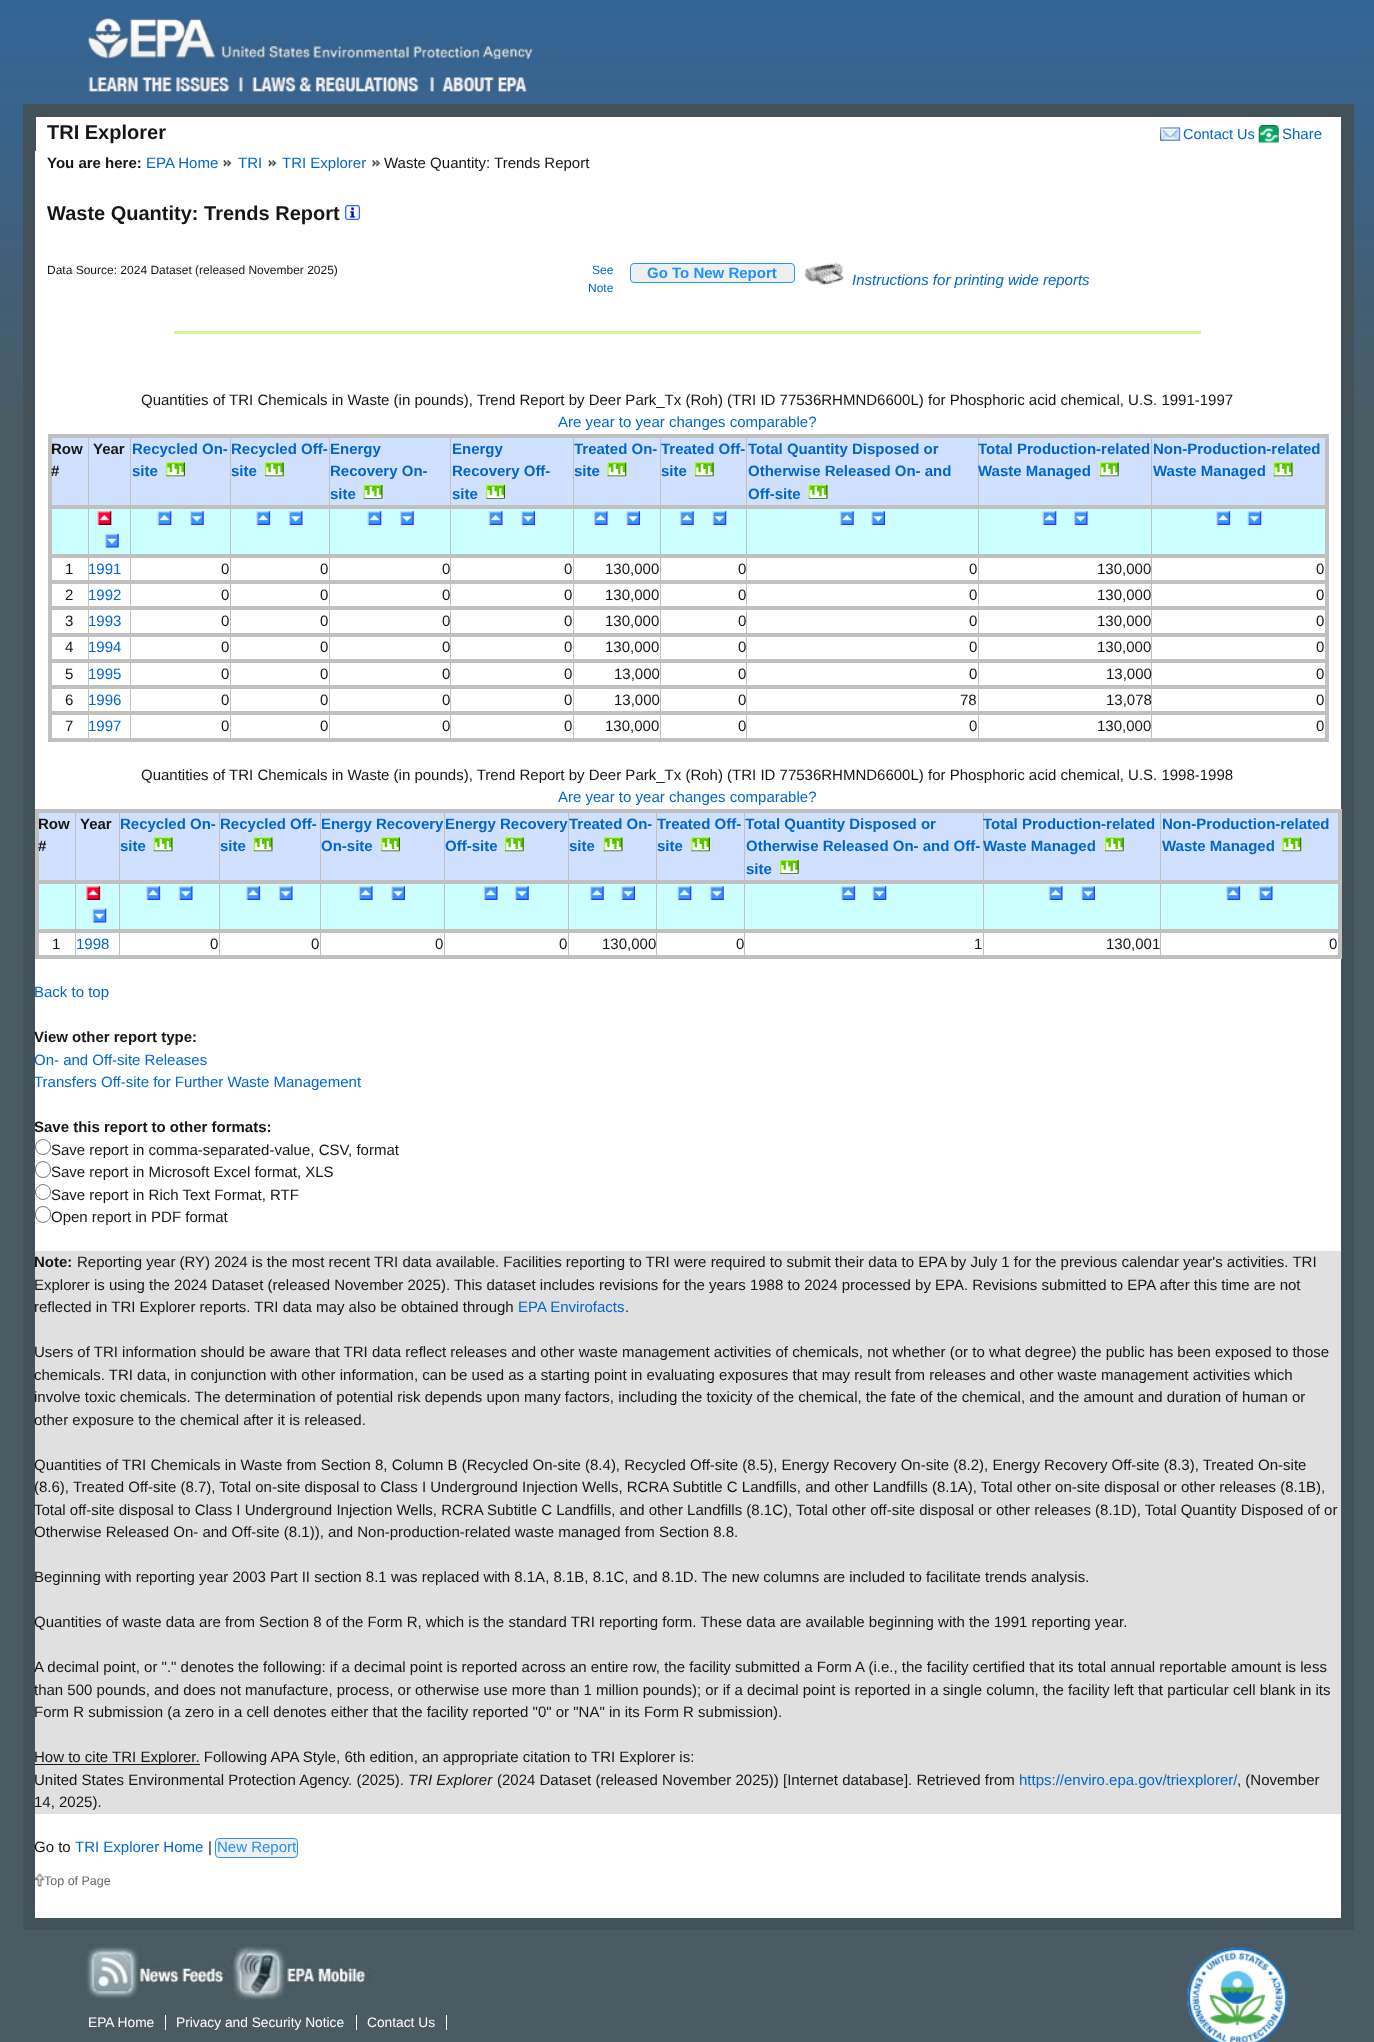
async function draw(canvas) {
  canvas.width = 1374
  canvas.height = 2042
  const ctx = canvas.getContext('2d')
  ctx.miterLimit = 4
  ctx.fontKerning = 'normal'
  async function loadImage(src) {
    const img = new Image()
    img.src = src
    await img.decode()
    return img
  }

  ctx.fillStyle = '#4a5b63'
  ctx.fillRect(0, 0, 1374, 2042)
  ctx.drawImage(await loadImage('image0.png'), 0, 0, 1374, 410)
  ctx.drawImage(await loadImage('image1.png'), 86, 16, 447, 45)
  ctx.drawImage(await loadImage('image2.png'), 88, 77, 141, 15)
  ctx.drawImage(await loadImage('image3.png'), 238, 77, 181, 15)
  ctx.drawImage(await loadImage('image4.png'), 430, 77, 97, 15)
  ctx.fillStyle = '#fff'
  ctx.fillRect(36, 117, 1305, 34)
  ctx.strokeStyle = '#435258'
  ctx.lineWidth = 13
  ctx.strokeRect(29.5, 110.5, 1318, 1813)
  ctx.font = 'bold 20px Liberation Sans'
  ctx.fillStyle = '#151515'
  ctx.fillText('TRI Explorer', 47, 139)
  ctx.drawImage(await loadImage('image5.png'), 1160, 127, 21, 14)
  ctx.font = '14.5px Liberation Sans'
  ctx.fillStyle = '#06c'
  ctx.fillText('Contact Us', 1183, 139)
  ctx.drawImage(await loadImage('image6.png'), 1258, 125, 21, 18)
  ctx.font = '15px Liberation Sans'
  ctx.fillText('Share', 1282, 139)
  ctx.fillStyle = '#fff'
  ctx.fillRect(35, 151, 1306, 1767)
  ctx.font = 'bold 15px Liberation Sans'
  ctx.fillStyle = '#151515'
  ctx.fillText('You are here:', 47, 168)
  ctx.font = '15px Liberation Sans'
  ctx.fillStyle = '#06c'
  ctx.fillText('EPA Home', 146, 168)
  ctx.drawImage(await loadImage('image7.png'), 223, 159, 9, 8)
  ctx.fillText('TRI', 238, 168)
  ctx.drawImage(await loadImage('image8.png'), 268, 159, 9, 8)
  ctx.fillText('TRI Explorer', 282, 168)
  ctx.drawImage(await loadImage('image9.png'), 372, 159, 9, 8)
  ctx.fillStyle = '#151515'
  ctx.fillText('Waste Quantity: Trends Report', 384, 168)
  ctx.font = 'bold 20px Liberation Sans'
  ctx.fillText('Waste Quantity: Trends Report', 47, 220)
  ctx.drawImage(await loadImage('image10.png'), 345, 205, 15, 15)
  ctx.font = '12px Liberation Sans'
  ctx.fillText('Data Source: 2024 Dataset (released November 2025)', 47, 274)
  ctx.fillStyle = '#06c'
  ctx.fillText('See', 592, 274)
  ctx.fillText('Note', 588, 292)
  ctx.fillStyle = '#efefef'
  ctx.beginPath()
  ctx.roundRect(630.5, 263.5, 164, 19, 3.5)
  ctx.fill()
  ctx.strokeStyle = '#2196f3'
  ctx.lineWidth = 1
  ctx.stroke()
  ctx.font = 'bold 15px Liberation Sans'
  ctx.fillStyle = '#1e90ff'
  ctx.fillText('Go To New Report', 647, 278)
  ctx.drawImage(await loadImage('image11.png'), 804, 262, 40, 23)
  ctx.font = 'italic 15px Liberation Sans'
  ctx.fillStyle = '#06c'
  ctx.fillText('Instructions for printing wide reports', 852, 285)
  ctx.fillStyle = '#d9f0a0'
  ctx.fillRect(174, 331, 1027, 3)
  ctx.font = '15px Liberation Sans'
  ctx.fillStyle = '#151515'
  ctx.fillText('Quantities of TRI Chemicals in Waste (in pounds), Trend Report by Deer Park_Tx (Roh) (TRI ID 77536RHMND6600L) for Phosphoric acid chemical, U.S. 1991-1997', 141, 405)
  ctx.fillStyle = '#06c'
  ctx.fillText('Are year to year changes comparable?', 558, 427)
  ctx.fillStyle = '#d0e0ff'
  ctx.fillRect(52, 438, 1273, 67)
  ctx.fillStyle = '#cff'
  ctx.fillRect(52, 509, 1273, 45)
  ctx.fillStyle = '#c0c0c0'
  ctx.fillRect(88, 435, 1, 305)
  ctx.fillRect(130, 435, 1, 305)
  ctx.fillRect(230, 435, 1, 305)
  ctx.fillRect(329, 435, 1, 305)
  ctx.fillRect(450, 435, 1, 305)
  ctx.fillRect(573, 435, 1, 305)
  ctx.fillRect(660, 435, 1, 305)
  ctx.fillRect(746, 435, 1, 305)
  ctx.fillRect(978, 435, 1, 305)
  ctx.fillRect(1151, 435, 1, 305)
  ctx.fillRect(48, 434, 1281, 4)
  ctx.fillRect(48, 505, 1281, 4)
  ctx.fillRect(48, 554, 1281, 4)
  ctx.fillRect(48, 580, 1281, 4)
  ctx.fillRect(48, 606, 1281, 4)
  ctx.fillRect(48, 633, 1281, 4)
  ctx.fillRect(48, 659, 1281, 4)
  ctx.fillRect(48, 685, 1281, 4)
  ctx.fillRect(48, 711, 1281, 4)
  ctx.fillRect(1325, 711, 4, 30)
  ctx.fillRect(1325, 685, 4, 30)
  ctx.fillRect(1325, 659, 4, 30)
  ctx.fillRect(1325, 633, 4, 30)
  ctx.fillRect(1325, 606, 4, 30)
  ctx.fillRect(1325, 580, 4, 30)
  ctx.fillRect(1325, 554, 4, 30)
  ctx.fillRect(1325, 505, 4, 53)
  ctx.fillRect(1325, 434, 4, 75)
  ctx.fillRect(48, 738, 1281, 4)
  ctx.fillRect(48, 711, 4, 30)
  ctx.fillRect(48, 685, 4, 30)
  ctx.fillRect(48, 659, 4, 30)
  ctx.fillRect(48, 633, 4, 30)
  ctx.fillRect(48, 606, 4, 30)
  ctx.fillRect(48, 580, 4, 30)
  ctx.fillRect(48, 554, 4, 30)
  ctx.fillRect(48, 505, 4, 53)
  ctx.fillRect(48, 434, 4, 75)
  ctx.font = 'bold 15px Liberation Sans'
  ctx.fillStyle = '#151515'
  ctx.fillText('Row', 51, 454)
  ctx.fillText('#', 51, 476)
  ctx.fillText('Year', 93, 454)
  ctx.fillStyle = '#06c'
  ctx.fillText('Recycled On-', 132, 454)
  ctx.fillText('site', 132, 476)
  ctx.drawImage(await loadImage('image12.png'), 166, 462, 19, 15)
  ctx.fillText('Recycled Off-', 231, 454)
  ctx.fillText('site', 231, 476)
  ctx.drawImage(await loadImage('image13.png'), 265, 462, 19, 15)
  ctx.fillText('Energy', 330, 454)
  ctx.fillText('Recovery On-', 330, 476)
  ctx.fillText('site', 330, 499)
  ctx.drawImage(await loadImage('image14.png'), 363, 485, 20, 14)
  ctx.fillText('Energy', 452, 454)
  ctx.fillText('Recovery Off-', 452, 476)
  ctx.fillText('site', 452, 499)
  ctx.drawImage(await loadImage('image15.png'), 486, 485, 19, 14)
  ctx.fillText('Treated On-', 574, 454)
  ctx.fillText('site', 574, 476)
  ctx.drawImage(await loadImage('image16.png'), 607, 462, 20, 15)
  ctx.fillText('Treated Off-', 661, 454)
  ctx.fillText('site', 661, 476)
  ctx.drawImage(await loadImage('image13.png'), 695, 462, 19, 15)
  ctx.fillText('Total Quantity Disposed or', 748, 454)
  ctx.fillText('Otherwise Released On- and', 748, 476)
  ctx.fillText('Off-site', 748, 499)
  ctx.drawImage(await loadImage('image14.png'), 808, 485, 20, 14)
  ctx.fillText('Total Production-related', 978, 454)
  ctx.fillText('Waste Managed', 978, 476)
  ctx.drawImage(await loadImage('image13.png'), 1100, 462, 19, 15)
  ctx.fillText('Non-Production-related', 1153, 454)
  ctx.fillText('Waste Managed', 1153, 476)
  ctx.drawImage(await loadImage('image17.png'), 1273, 462, 20, 15)
  ctx.drawImage(await loadImage('image18.png'), 97, 511, 15, 14)
  ctx.drawImage(await loadImage('image19.png'), 105, 533, 14, 15)
  ctx.drawImage(await loadImage('image20.png'), 157, 511, 15, 14)
  ctx.drawImage(await loadImage('image21.png'), 190, 511, 14, 14)
  ctx.drawImage(await loadImage('image22.png'), 256, 511, 15, 14)
  ctx.drawImage(await loadImage('image23.png'), 288, 511, 15, 14)
  ctx.drawImage(await loadImage('image24.png'), 367, 511, 15, 14)
  ctx.drawImage(await loadImage('image21.png'), 400, 511, 14, 14)
  ctx.drawImage(await loadImage('image25.png'), 488, 511, 15, 14)
  ctx.drawImage(await loadImage('image26.png'), 521, 511, 14, 14)
  ctx.drawImage(await loadImage('image25.png'), 593, 511, 15, 14)
  ctx.drawImage(await loadImage('image26.png'), 626, 511, 14, 14)
  ctx.drawImage(await loadImage('image27.png'), 680, 511, 14, 14)
  ctx.drawImage(await loadImage('image28.png'), 712, 511, 15, 14)
  ctx.drawImage(await loadImage('image27.png'), 840, 511, 14, 14)
  ctx.drawImage(await loadImage('image26.png'), 871, 511, 14, 14)
  ctx.drawImage(await loadImage('image24.png'), 1042, 511, 15, 14)
  ctx.drawImage(await loadImage('image23.png'), 1073, 511, 15, 14)
  ctx.drawImage(await loadImage('image29.png'), 1216, 511, 15, 14)
  ctx.drawImage(await loadImage('image28.png'), 1247, 511, 15, 14)
  ctx.font = '15px Liberation Sans'
  ctx.fillStyle = '#151515'
  ctx.fillText('1', 65, 574)
  ctx.fillStyle = '#06c'
  ctx.fillText('1991', 88, 574)
  ctx.fillStyle = '#151515'
  ctx.fillText('0', 221, 574)
  ctx.fillText('0', 320, 574)
  ctx.fillText('0', 442, 574)
  ctx.fillText('0', 564, 574)
  ctx.fillText('130,000', 605, 574)
  ctx.fillText('0', 738, 574)
  ctx.fillText('0', 969, 574)
  ctx.fillText('130,000', 1097, 574)
  ctx.fillText('0', 1316, 574)
  ctx.fillText('2', 65, 600)
  ctx.fillStyle = '#06c'
  ctx.fillText('1992', 88, 600)
  ctx.fillStyle = '#151515'
  ctx.fillText('0', 221, 600)
  ctx.fillText('0', 320, 600)
  ctx.fillText('0', 442, 600)
  ctx.fillText('0', 564, 600)
  ctx.fillText('130,000', 605, 600)
  ctx.fillText('0', 738, 600)
  ctx.fillText('0', 969, 600)
  ctx.fillText('130,000', 1097, 600)
  ctx.fillText('0', 1316, 600)
  ctx.fillText('3', 65, 626)
  ctx.fillStyle = '#06c'
  ctx.fillText('1993', 88, 626)
  ctx.fillStyle = '#151515'
  ctx.fillText('0', 221, 626)
  ctx.fillText('0', 320, 626)
  ctx.fillText('0', 442, 626)
  ctx.fillText('0', 564, 626)
  ctx.fillText('130,000', 605, 626)
  ctx.fillText('0', 738, 626)
  ctx.fillText('0', 969, 626)
  ctx.fillText('130,000', 1097, 626)
  ctx.fillText('0', 1316, 626)
  ctx.fillText('4', 65, 652)
  ctx.fillStyle = '#06c'
  ctx.fillText('1994', 88, 652)
  ctx.fillStyle = '#151515'
  ctx.fillText('0', 221, 652)
  ctx.fillText('0', 320, 652)
  ctx.fillText('0', 442, 652)
  ctx.fillText('0', 564, 652)
  ctx.fillText('130,000', 605, 652)
  ctx.fillText('0', 738, 652)
  ctx.fillText('0', 969, 652)
  ctx.fillText('130,000', 1097, 652)
  ctx.fillText('0', 1316, 652)
  ctx.fillText('5', 65, 679)
  ctx.fillStyle = '#06c'
  ctx.fillText('1995', 88, 679)
  ctx.fillStyle = '#151515'
  ctx.fillText('0', 221, 679)
  ctx.fillText('0', 320, 679)
  ctx.fillText('0', 442, 679)
  ctx.fillText('0', 564, 679)
  ctx.fillText('13,000', 614, 679)
  ctx.fillText('0', 738, 679)
  ctx.fillText('0', 969, 679)
  ctx.fillText('13,000', 1106, 679)
  ctx.fillText('0', 1316, 679)
  ctx.fillText('6', 65, 705)
  ctx.fillStyle = '#06c'
  ctx.fillText('1996', 88, 705)
  ctx.fillStyle = '#151515'
  ctx.fillText('0', 221, 705)
  ctx.fillText('0', 320, 705)
  ctx.fillText('0', 442, 705)
  ctx.fillText('0', 564, 705)
  ctx.fillText('13,000', 614, 705)
  ctx.fillText('0', 738, 705)
  ctx.fillText('78', 960, 705)
  ctx.fillText('13,078', 1106, 705)
  ctx.fillText('0', 1316, 705)
  ctx.fillText('7', 65, 731)
  ctx.fillStyle = '#06c'
  ctx.fillText('1997', 88, 731)
  ctx.fillStyle = '#151515'
  ctx.fillText('0', 221, 731)
  ctx.fillText('0', 320, 731)
  ctx.fillText('0', 442, 731)
  ctx.fillText('0', 564, 731)
  ctx.fillText('130,000', 605, 731)
  ctx.fillText('0', 738, 731)
  ctx.fillText('0', 969, 731)
  ctx.fillText('130,000', 1097, 731)
  ctx.fillText('0', 1316, 731)
  ctx.fillText('Quantities of TRI Chemicals in Waste (in pounds), Trend Report by Deer Park_Tx (Roh) (TRI ID 77536RHMND6600L) for Phosphoric acid chemical, U.S. 1998-1998', 141, 780)
  ctx.fillStyle = '#06c'
  ctx.fillText('Are year to year changes comparable?', 558, 802)
  ctx.fillStyle = '#d0e0ff'
  ctx.fillRect(39, 813, 1299, 67)
  ctx.fillStyle = '#cff'
  ctx.fillRect(39, 884, 1299, 45)
  ctx.fillStyle = '#c0c0c0'
  ctx.fillRect(75, 810, 1, 148)
  ctx.fillRect(119, 810, 1, 148)
  ctx.fillRect(219, 810, 1, 148)
  ctx.fillRect(320, 810, 1, 148)
  ctx.fillRect(444, 810, 1, 148)
  ctx.fillRect(568, 810, 1, 148)
  ctx.fillRect(656, 810, 1, 148)
  ctx.fillRect(744, 810, 1, 148)
  ctx.fillRect(983, 810, 1, 148)
  ctx.fillRect(1160, 810, 1, 148)
  ctx.fillRect(35, 809, 1306, 4)
  ctx.fillRect(35, 880, 1306, 4)
  ctx.fillRect(35, 929, 1306, 4)
  ctx.fillRect(1338, 929, 4, 30)
  ctx.fillRect(1338, 880, 4, 53)
  ctx.fillRect(1338, 809, 4, 75)
  ctx.fillRect(35, 955, 1306, 4)
  ctx.fillRect(35, 929, 4, 30)
  ctx.fillRect(35, 880, 4, 53)
  ctx.fillRect(35, 809, 4, 75)
  ctx.font = 'bold 15px Liberation Sans'
  ctx.fillStyle = '#151515'
  ctx.fillText('Row', 38, 829)
  ctx.fillText('#', 38, 851)
  ctx.fillText('Year', 80, 829)
  ctx.fillStyle = '#06c'
  ctx.fillText('Recycled On- Recycled Off- Energy Recovery', 120, 829)
  ctx.fillText('site', 120, 851)
  ctx.drawImage(await loadImage('image17.png'), 153, 837, 20, 15)
  ctx.fillText('Energy Recovery', 445, 829)
  ctx.fillText('Off-site', 445, 851)
  ctx.drawImage(await loadImage('image13.png'), 505, 837, 19, 15)
  ctx.fillText('Treated On-', 569, 829)
  ctx.fillText('site', 569, 851)
  ctx.drawImage(await loadImage('image17.png'), 603, 837, 20, 15)
  ctx.fillText('Treated Off- Total Quantity Disposed or', 657, 829)
  ctx.fillText('site', 657, 851)
  ctx.drawImage(await loadImage('image12.png'), 691, 837, 19, 15)
  ctx.fillText('Total Production-related', 983, 829)
  ctx.fillText('Waste Managed', 983, 851)
  ctx.drawImage(await loadImage('image13.png'), 1105, 837, 19, 15)
  ctx.fillText('Non-Production-related', 1162, 829)
  ctx.fillText('Waste Managed', 1162, 851)
  ctx.drawImage(await loadImage('image16.png'), 1282, 837, 20, 15)
  ctx.fillText('site', 220, 851)
  ctx.drawImage(await loadImage('image17.png'), 253, 837, 20, 15)
  ctx.fillText('On-site', 321, 851)
  ctx.drawImage(await loadImage('image12.png'), 381, 837, 19, 15)
  ctx.fillText('Otherwise Released On- and Off-', 746, 851)
  ctx.fillText('site', 746, 874)
  ctx.drawImage(await loadImage('image30.png'), 780, 860, 19, 14)
  ctx.drawImage(await loadImage('image31.png'), 86, 886, 15, 14)
  ctx.drawImage(await loadImage('image32.png'), 92, 908, 15, 15)
  ctx.drawImage(await loadImage('image29.png'), 146, 886, 15, 14)
  ctx.drawImage(await loadImage('image33.png'), 178, 886, 15, 14)
  ctx.drawImage(await loadImage('image29.png'), 246, 886, 15, 14)
  ctx.drawImage(await loadImage('image23.png'), 278, 886, 15, 14)
  ctx.drawImage(await loadImage('image34.png'), 358, 886, 15, 14)
  ctx.drawImage(await loadImage('image26.png'), 391, 886, 14, 14)
  ctx.drawImage(await loadImage('image25.png'), 483, 886, 15, 14)
  ctx.drawImage(await loadImage('image21.png'), 515, 886, 14, 14)
  ctx.drawImage(await loadImage('image35.png'), 590, 886, 14, 14)
  ctx.drawImage(await loadImage('image26.png'), 621, 886, 14, 14)
  ctx.drawImage(await loadImage('image20.png'), 677, 886, 15, 14)
  ctx.drawImage(await loadImage('image36.png'), 710, 886, 14, 14)
  ctx.drawImage(await loadImage('image29.png'), 841, 886, 15, 14)
  ctx.drawImage(await loadImage('image28.png'), 872, 886, 15, 14)
  ctx.drawImage(await loadImage('image25.png'), 1048, 886, 15, 14)
  ctx.drawImage(await loadImage('image26.png'), 1081, 886, 14, 14)
  ctx.drawImage(await loadImage('image29.png'), 1226, 886, 15, 14)
  ctx.drawImage(await loadImage('image33.png'), 1258, 886, 15, 14)
  ctx.font = '15px Liberation Sans'
  ctx.fillStyle = '#151515'
  ctx.fillText('1', 52, 949)
  ctx.fillStyle = '#06c'
  ctx.fillText('1998', 76, 949)
  ctx.fillStyle = '#151515'
  ctx.fillText('0', 210, 949)
  ctx.fillText('0', 311, 949)
  ctx.fillText('0', 435, 949)
  ctx.fillText('0', 559, 949)
  ctx.fillText('130,000', 602, 949)
  ctx.fillText('0', 736, 949)
  ctx.fillText('1', 974, 949)
  ctx.fillText('130,001', 1106, 949)
  ctx.fillText('0', 1329, 949)
  ctx.fillStyle = '#06c'
  ctx.fillText('Back to top', 34, 997)
  ctx.font = 'bold 15px Liberation Sans'
  ctx.fillStyle = '#151515'
  ctx.fillText('View other report type:', 34, 1042)
  ctx.font = '15px Liberation Sans'
  ctx.fillStyle = '#06c'
  ctx.fillText('On- and Off-site Releases', 34, 1065)
  ctx.fillText('Transfers Off-site for Further Waste Management', 34, 1087)
  ctx.font = 'bold 15px Liberation Sans'
  ctx.fillStyle = '#151515'
  ctx.fillText('Save this report to other formats:', 34, 1132)
  ctx.beginPath()
  ctx.arc(43, 1147, 7.5, 0, 2 * Math.PI)
  ctx.strokeStyle = '#767676'
  ctx.stroke()
  ctx.font = '15px Liberation Sans'
  ctx.fillText('Save report in comma-separated-value, CSV, format', 51, 1155)
  ctx.beginPath()
  ctx.roundRect(35.5, 1161.5, 15, 16, 7.5)
  ctx.stroke()
  ctx.fillText('Save report in Microsoft Excel format, XLS', 51, 1177)
  ctx.beginPath()
  ctx.arc(43, 1192, 7.5, 0, 2 * Math.PI)
  ctx.stroke()
  ctx.fillText('Save report in Rich Text Format, RTF', 51, 1200)
  ctx.beginPath()
  ctx.roundRect(35.5, 1206.5, 15, 16, 7.5)
  ctx.stroke()
  ctx.fillText('Open report in PDF format', 51, 1222)
  ctx.fillStyle = '#e0e0e0'
  ctx.fillRect(35, 1251, 1306, 563)
  ctx.font = 'bold 15px Liberation Sans'
  ctx.fillStyle = '#151515'
  ctx.fillText('Note:', 34, 1267)
  ctx.font = '15px Liberation Sans'
  ctx.fillText('Reporting year (RY) 2024 is the most recent TRI data available. Facilities reporting to TRI were required to submit their data to EPA by July 1 for the previous calendar year\'s activities. TRI', 77, 1267)
  ctx.fillText('Explorer is using the 2024 Dataset (released November 2025). This dataset includes revisions for the years 1988 to 2024 processed by EPA. Revisions submitted to EPA after this time are not', 34, 1290)
  ctx.fillText('reflected in TRI Explorer reports. TRI data may also be obtained through', 34, 1312)
  ctx.fillStyle = '#06c'
  ctx.fillText('EPA Envirofacts', 518, 1312)
  ctx.fillStyle = '#151515'
  ctx.fillText('.', 625, 1312)
  ctx.fillText('Users of TRI information should be aware that TRI data reflect releases and other waste management activities of chemicals, not whether (or to what degree) the public has been exposed to those', 34, 1357)
  ctx.fillText('chemicals. TRI data, in conjunction with other information, can be used as a starting point in evaluating exposures that may result from releases and other waste management activities which', 34, 1380)
  ctx.fillText('involve toxic chemicals. The determination of potential risk depends upon many factors, including the toxicity of the chemical, the fate of the chemical, and the amount and duration of human or', 34, 1402)
  ctx.fillText('other exposure to the chemical after it is released.', 34, 1425)
  ctx.fillText('Quantities of TRI Chemicals in Waste from Section 8, Column B (Recycled On-site (8.4), Recycled Off-site (8.5), Energy Recovery On-site (8.2), Energy Recovery Off-site (8.3), Treated On-site', 34, 1470)
  ctx.fillText('(8.6), Treated Off-site (8.7), Total on-site disposal to Class I Underground Injection Wells, RCRA Subtitle C Landfills, and other Landfills (8.1A), Total other on-site disposal or other releases (8.1B),', 34, 1492)
  ctx.fillText('Total off-site disposal to Class I Underground Injection Wells, RCRA Subtitle C Landfills, and other Landfills (8.1C), Total other off-site disposal or other releases (8.1D), Total Quantity Disposed of or', 34, 1515)
  ctx.fillText('Otherwise Released On- and Off-site (8.1)), and Non-production-related waste managed from Section 8.8.', 34, 1537)
  ctx.fillText('Beginning with reporting year 2003 Part II section 8.1 was replaced with 8.1A, 8.1B, 8.1C, and 8.1D. The new columns are included to facilitate trends analysis.', 34, 1582)
  ctx.fillText('Quantities of waste data are from Section 8 of the Form R, which is the standard TRI reporting form. These data are available beginning with the 1991 reporting year.', 34, 1627)
  ctx.fillText('A decimal point, or "." denotes the following: if a decimal point is reported across an entire row, the facility submitted a Form A (i.e., the facility certified that its total annual reportable amount is less', 34, 1672)
  ctx.fillText('than 500 pounds, and does not manufacture, process, or otherwise use more than 1 million pounds); or if a decimal point is reported in a single column, the facility left that particular cell blank in its', 34, 1695)
  ctx.fillText('Form R submission (a zero in a cell denotes either that the facility reported "0" or "NA" in its Form R submission).', 34, 1717)
  ctx.fillRect(35, 1764, 165, 1)
  ctx.fillText('How to cite TRI Explorer. Following APA Style, 6th edition, an appropriate citation to TRI Explorer is:', 34, 1762)
  ctx.fillText('United States Environmental Protection Agency. (2025).', 34, 1785)
  ctx.font = 'italic 15px Liberation Sans'
  ctx.fillText('TRI Explorer', 408, 1785)
  ctx.font = '15px Liberation Sans'
  ctx.fillText('(2024 Dataset (released November 2025)) [Internet database]. Retrieved from', 497, 1785)
  ctx.fillStyle = '#06c'
  ctx.fillText('https://enviro.epa.gov/triexplorer/', 1019, 1785)
  ctx.fillStyle = '#151515'
  ctx.fillText(', (November', 1237, 1785)
  ctx.fillText('14, 2025).', 34, 1807)
  ctx.fillText('Go to', 34, 1852)
  ctx.fillStyle = '#06c'
  ctx.fillText('TRI Explorer Home', 75, 1852)
  ctx.fillStyle = '#151515'
  ctx.fillText('|', 208, 1852)
  ctx.fillStyle = '#efefef'
  ctx.beginPath()
  ctx.roundRect(215.5, 1838.5, 82, 19, 3.5)
  ctx.fill()
  ctx.strokeStyle = '#2196f3'
  ctx.stroke()
  ctx.fillStyle = '#1e90ff'
  ctx.fillText('New Report', 217, 1852)
  ctx.drawImage(await loadImage('image37.png'), 35, 1873, 10, 14)
  ctx.font = '12.5px Liberation Sans'
  ctx.fillStyle = '#666'
  ctx.fillText('Top of Page', 44, 1885)
  ctx.drawImage(await loadImage('image38.png'), 1187, 1947, 101, 95)
  ctx.drawImage(await loadImage('image39.png'), 86, 1944, 145, 55)
  ctx.drawImage(await loadImage('image40.png'), 231, 1945, 140, 55)
  ctx.font = '13.75px Liberation Sans'
  ctx.fillStyle = '#fff'
  ctx.fillText('EPA Home', 88, 2027)
  ctx.fillRect(165, 2015, 1, 15)
  ctx.fillText('Privacy and Security Notice', 176, 2027)
  ctx.fillRect(356, 2015, 1, 15)
  ctx.fillText('Contact Us', 367, 2027)
  ctx.fillRect(446, 2015, 1, 15)
}

draw(document.querySelector('canvas'))
